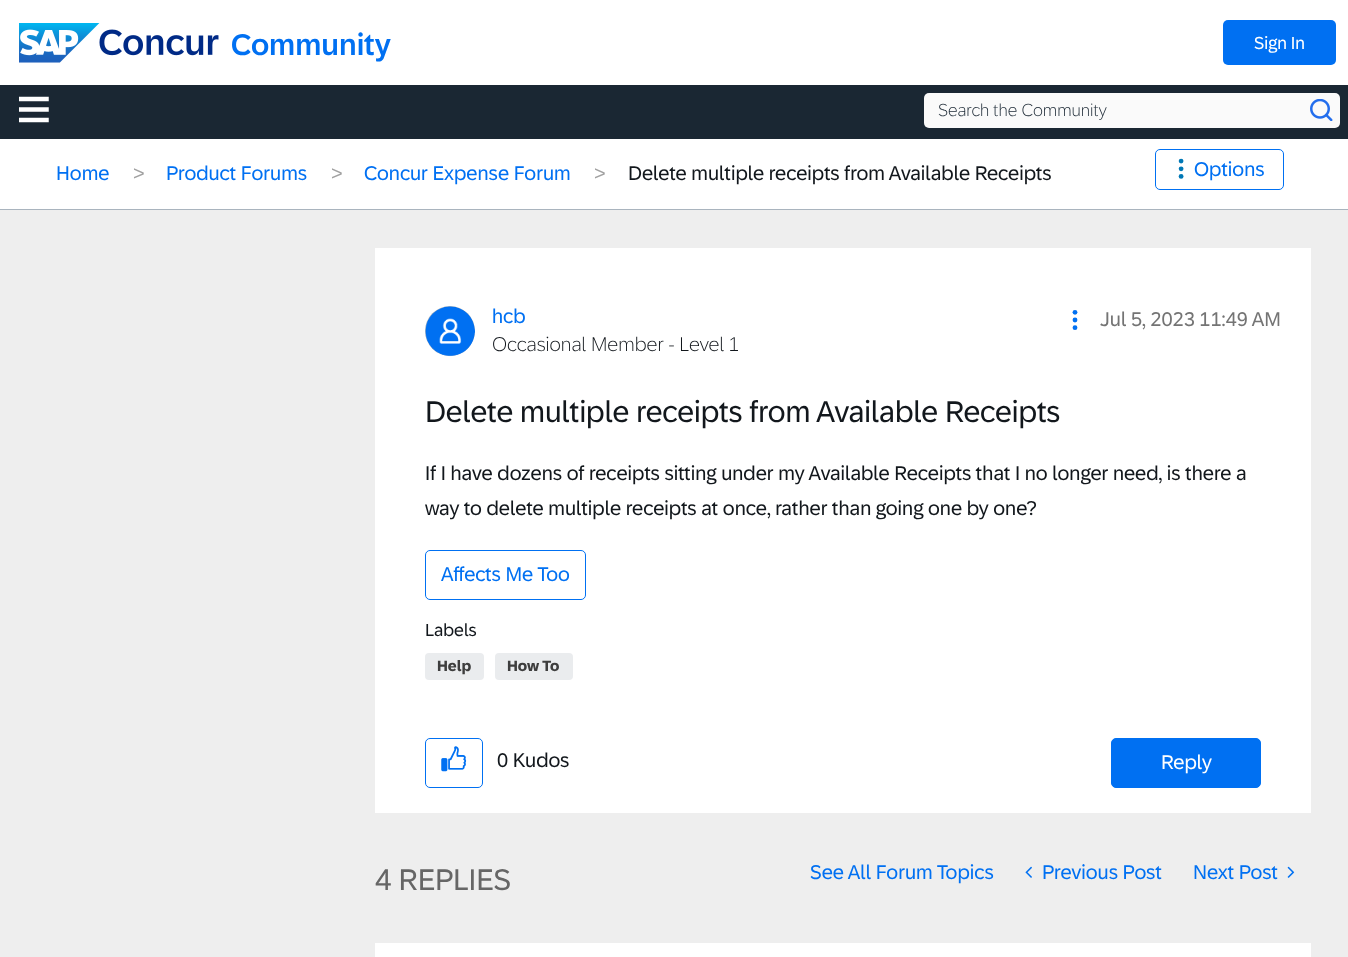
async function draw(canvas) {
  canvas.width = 1348
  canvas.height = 957
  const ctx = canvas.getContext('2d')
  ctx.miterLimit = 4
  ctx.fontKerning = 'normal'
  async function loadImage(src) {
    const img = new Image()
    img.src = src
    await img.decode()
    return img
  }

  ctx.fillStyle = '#eee'
  ctx.fillRect(0, 0, 1348, 957)
  ctx.fillStyle = '#fff'
  ctx.fillRect(0, 0, 1348, 85)
  ctx.drawImage(await loadImage('image0.png'), 19, 23, 200, 40)
  ctx.font = '500 30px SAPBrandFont'
  ctx.fillStyle = '#0070f2'
  ctx.fillText('Community', 231, 55)
  ctx.beginPath()
  ctx.roundRect(1223, 20, 113, 45, 5)
  ctx.fill()
  ctx.font = '17.5px SAPBrandFont'
  ctx.fillStyle = '#fff'
  ctx.fillText('Sign In', 1254, 49)
  ctx.fillStyle = '#1a2733'
  ctx.fillRect(0, 85, 1348, 54)
  ctx.drawImage(await loadImage('image1.png'), 19, 96, 30, 27)
  ctx.fillStyle = '#fafafa'
  ctx.beginPath()
  ctx.roundRect(924, 93, 416, 35, 5)
  ctx.fill()
  ctx.font = '300 17.5px SAPBrandFont'
  ctx.fillStyle = '#1a2733'
  ctx.fillText('Search the Community', 938, 116)
  ctx.drawImage(await loadImage('image2.png'), 1310, 99, 23, 22)
  ctx.fillStyle = '#fff'
  ctx.fillRect(0, 139, 1348, 70)
  ctx.fillStyle = '#a9b4be'
  ctx.fillRect(0, 209, 1348, 1)
  ctx.font = '20px SAPBrandFont'
  ctx.fillStyle = '#0070f2'
  ctx.fillText('Home', 56, 180)
  ctx.fillStyle = '#a1a1a1'
  ctx.fillText('>', 133, 180)
  ctx.fillStyle = '#0070f2'
  ctx.fillText('Product Forums', 166, 180)
  ctx.fillStyle = '#a1a1a1'
  ctx.fillText('>', 331, 180)
  ctx.fillStyle = '#0070f2'
  ctx.fillText('Concur Expense Forum', 364, 180)
  ctx.fillStyle = '#a1a1a1'
  ctx.fillText('>', 594, 180)
  ctx.fillStyle = '#12171c'
  ctx.fillText('Delete multiple receipts from Available Receipts', 628, 180)
  ctx.beginPath()
  ctx.roundRect(1155.5, 149.5, 128, 40, 4.5)
  ctx.strokeStyle = '#0070f2'
  ctx.stroke()
  ctx.fillStyle = '#0078b6'
  ctx.beginPath()
  ctx.arc(1181.1, 161.1, 2.4, 0, 2 * Math.PI)
  ctx.fill()
  ctx.beginPath()
  ctx.arc(1181.1, 168.8, 2.4, 0, 2 * Math.PI)
  ctx.fill()
  ctx.beginPath()
  ctx.arc(1181.1, 176.4, 2.4, 0, 2 * Math.PI)
  ctx.fill()
  ctx.fillStyle = '#0070f2'
  ctx.fillText('Options', 1194, 176)
  ctx.fillStyle = '#fff'
  ctx.fillRect(375, 248, 936, 565)
  ctx.fillStyle = '#a9b4be'
  ctx.filter = 'blur(0.5px)'
  ctx.beginPath()
  ctx.roundRect(425, 306, 50, 50, 25)
  ctx.fill()
  ctx.filter = 'none'
  ctx.drawImage(await loadImage('image3.png'), 425, 306, 50, 51)
  ctx.fillStyle = '#0070f2'
  ctx.fillText('hcb', 492, 323)
  ctx.font = '300 20px SAPBrandFont'
  ctx.fillStyle = '#12171c'
  ctx.fillText('Occasional Member - Level 1', 492, 351)
  ctx.fillStyle = '#0070f2'
  ctx.beginPath()
  ctx.arc(1075, 312.3, 2.4, 0, 2 * Math.PI)
  ctx.fill()
  ctx.beginPath()
  ctx.arc(1075, 320, 2.4, 0, 2 * Math.PI)
  ctx.fill()
  ctx.beginPath()
  ctx.arc(1075, 327.7, 2.4, 0, 2 * Math.PI)
  ctx.fill()
  ctx.font = '20px SAPBrandFont'
  ctx.fillStyle = '#747474'
  ctx.fillText('Jul 5, 2023 11:49 AM', 1100, 326)
  ctx.font = '30px SAPBrandFont'
  ctx.fillStyle = '#12171c'
  ctx.fillText('Delete multiple receipts from Available Receipts', 425, 422)
  ctx.font = '20px SAPBrandFont'
  ctx.fillText('If I have dozens of receipts sitting under my Available Receipts that I no longer need, is there a', 425, 480)
  ctx.fillText('way to delete multiple receipts at once, rather than going one by one?', 425, 515)
  ctx.beginPath()
  ctx.roundRect(425.5, 550.5, 160, 49, 4.5)
  ctx.stroke()
  ctx.fillStyle = '#0070f2'
  ctx.fillText('Affects Me Too', 441, 581)
  ctx.font = '17.5px SAPBrandFont'
  ctx.fillStyle = '#12171c'
  ctx.fillText('Labels', 425, 636)
  ctx.fillStyle = '#eaecee'
  ctx.beginPath()
  ctx.roundRect(425, 653, 59, 27, 4)
  ctx.fill()
  ctx.font = 'bold 15px SAPBrandFont'
  ctx.fillStyle = '#3e3e3e'
  ctx.fillText('Help', 437, 671)
  ctx.fillStyle = '#eaecee'
  ctx.beginPath()
  ctx.roundRect(495, 653, 78, 27, 4)
  ctx.fill()
  ctx.fillStyle = '#3e3e3e'
  ctx.fillText('How To', 507, 671)
  ctx.beginPath()
  ctx.roundRect(425.5, 738.5, 57, 49, 4.5)
  ctx.stroke()
  ctx.drawImage(await loadImage('image4.png'), 441, 746, 26, 26)
  ctx.font = '20px SAPBrandFont'
  ctx.fillStyle = '#12171c'
  ctx.fillText('0 Kudos', 497, 767)
  ctx.fillStyle = '#0070f2'
  ctx.beginPath()
  ctx.roundRect(1111.5, 738.5, 149, 49, 4.5)
  ctx.fill()
  ctx.stroke()
  ctx.fillStyle = '#fff'
  ctx.fillText('Reply', 1161, 769)
  ctx.font = '30px SAPBrandFont'
  ctx.fillStyle = '#666'
  ctx.fillText('4 REPLIES', 375, 890)
  ctx.font = '20px SAPBrandFont'
  ctx.fillStyle = '#0070f2'
  ctx.fillText('See All Forum Topics', 810, 879)
  ctx.drawImage(await loadImage('image5.png'), 1025, 866, 7, 12)
  ctx.fillText('Previous Post', 1042, 879)
  ctx.fillText('Next Post', 1193, 879)
  ctx.drawImage(await loadImage('image6.png'), 1287, 866, 8, 12)
  ctx.fillStyle = '#fff'
  ctx.fillRect(375, 943, 936, 14)
}

draw(document.querySelector('canvas'))
